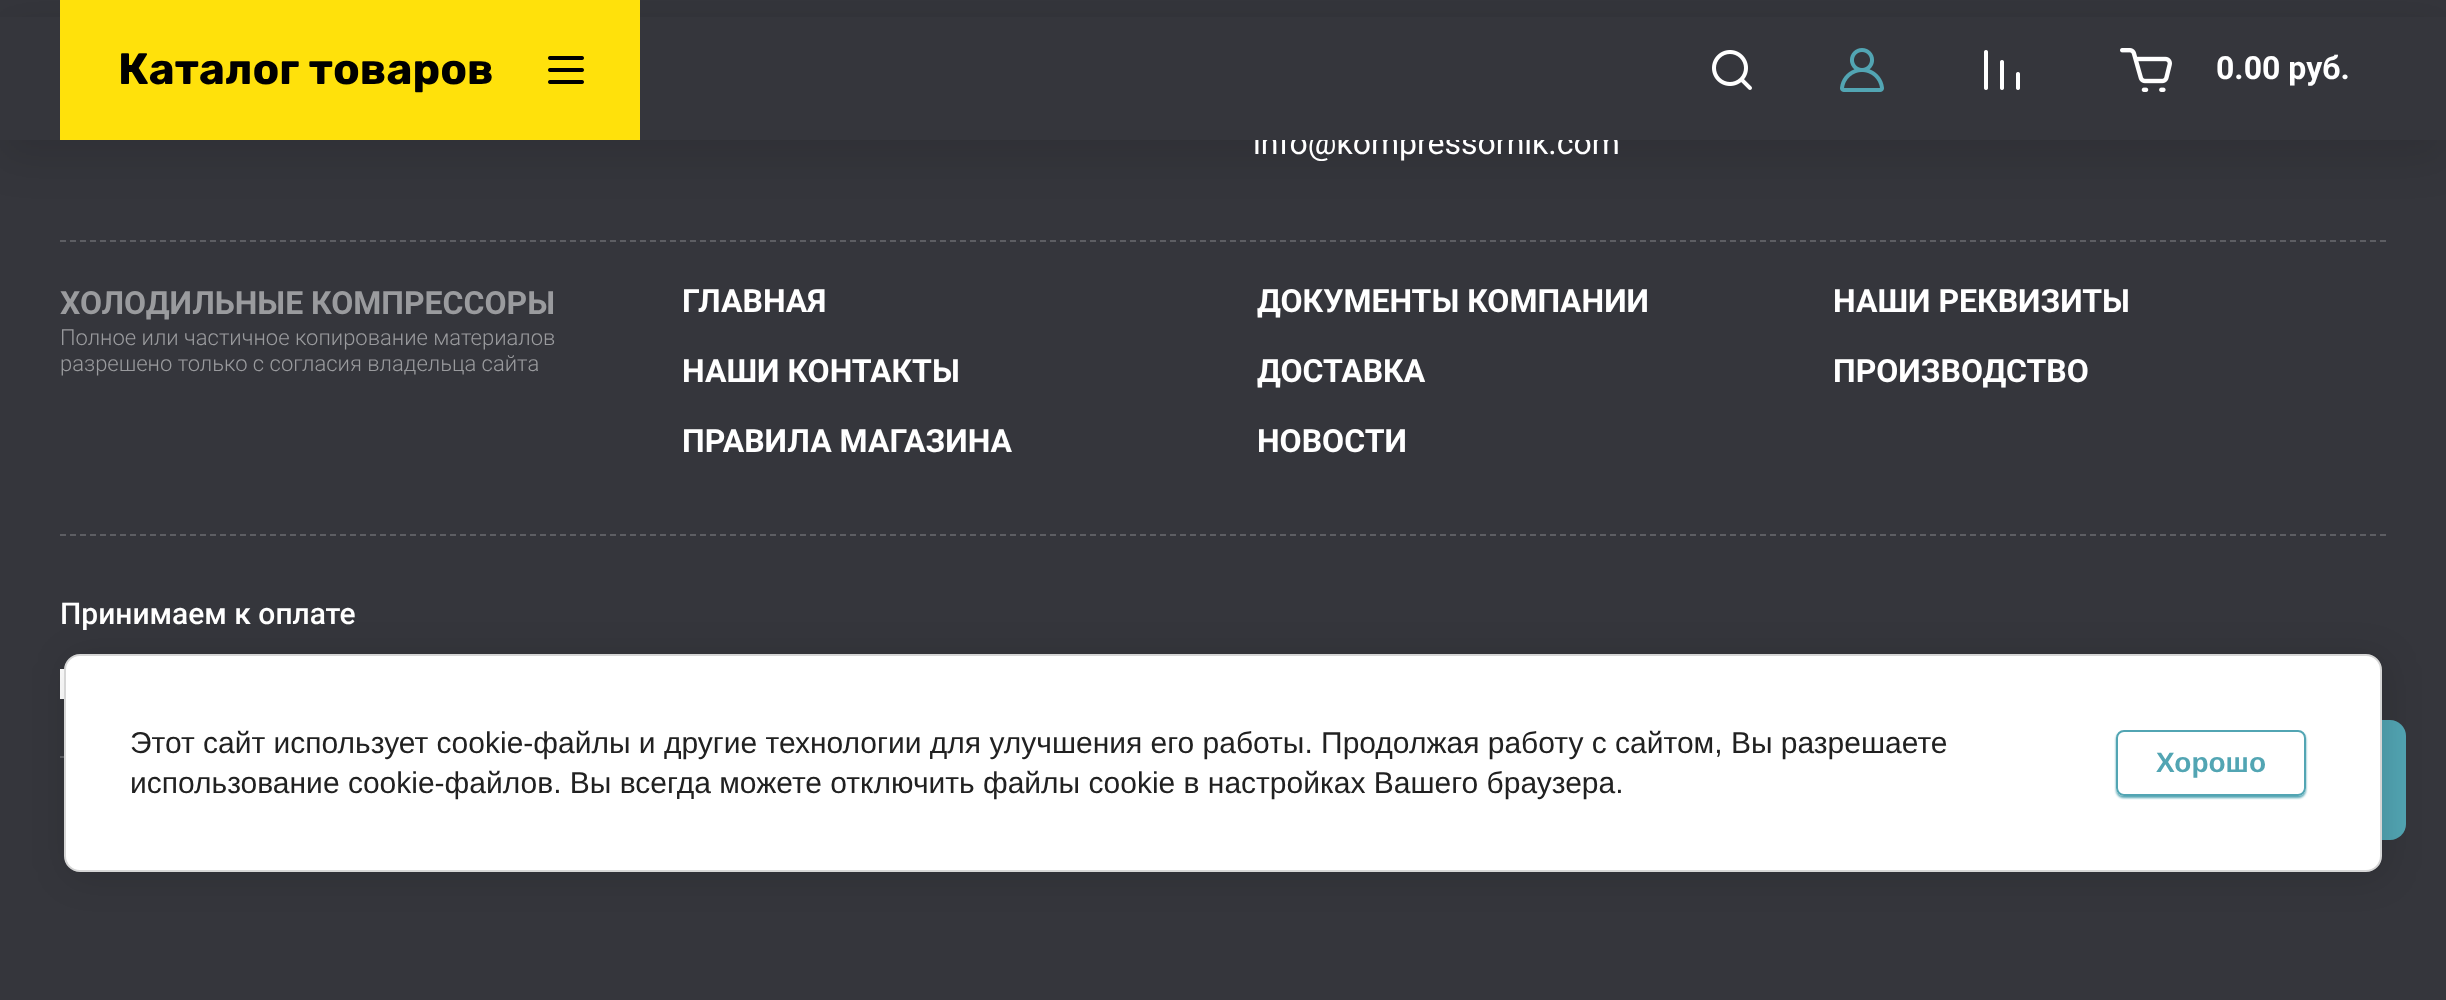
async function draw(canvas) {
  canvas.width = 2446
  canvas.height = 1000
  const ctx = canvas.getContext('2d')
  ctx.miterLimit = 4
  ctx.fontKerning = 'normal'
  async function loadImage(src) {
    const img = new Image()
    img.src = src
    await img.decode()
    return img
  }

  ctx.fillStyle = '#35363c'
  ctx.fillRect(0, 0, 2446, 1000)
  ctx.fillStyle = '#0000001a'
  ctx.filter = 'blur(20px)'
  ctx.beginPath()
  ctx.rect(0, 20, 2446, 140)
  ctx.fill()
  ctx.filter = 'none'
  ctx.font = '32px Roboto'
  ctx.fillStyle = '#fff'
  ctx.fillText('info@kompressorhik.com', 1253, 154)
  ctx.fillStyle = '#35363c'
  ctx.fillRect(0, 17, 2446, 123)
  ctx.fillStyle = '#ffe10b'
  ctx.fillRect(60, 0, 580, 140)
  ctx.font = 'bold 44px Rubik'
  ctx.fillStyle = '#000'
  ctx.fillText('Каталог товаров', 118, 84)
  ctx.drawImage(await loadImage('image0.png'), 548, 56, 36, 28)
  ctx.drawImage(await loadImage('image1.png'), 1712, 50, 40, 40)
  ctx.drawImage(await loadImage('image2.png'), 1840, 48, 44, 44)
  ctx.drawImage(await loadImage('image3.png'), 1984, 50, 36, 40)
  ctx.drawImage(await loadImage('image4.png'), 2120, 48, 52, 44)
  ctx.font = 'bold 32px Roboto'
  ctx.fillStyle = '#fff'
  ctx.fillText('0.00 руб.', 2216, 79)
  ctx.beginPath()
  ctx.moveTo(60, 241)
  ctx.lineTo(2386, 241)
  ctx.strokeStyle = '#5d5e63'
  ctx.lineWidth = 2
  ctx.setLineDash([6, 4])
  ctx.stroke()
  ctx.fillStyle = '#9a9b9e'
  ctx.fillText('ХОЛОДИЛЬНЫЕ КОМПРЕССОРЫ', 60, 314)
  ctx.font = '300 22px Roboto'
  ctx.fillText('Полное или частичное копирование материалов', 60, 345)
  ctx.fillText('разрешено только с согласия владельца сайта', 60, 371)
  ctx.font = 'bold 32px Roboto'
  ctx.fillStyle = '#fff'
  ctx.fillText('ГЛАВНАЯ', 682, 312)
  ctx.fillText('ДОКУМЕНТЫ КОМПАНИИ', 1257, 312)
  ctx.fillText('НАШИ РЕКВИЗИТЫ', 1833, 312)
  ctx.fillText('НАШИ КОНТАКТЫ', 682, 382)
  ctx.fillText('ДОСТАВКА', 1257, 382)
  ctx.fillText('ПРОИЗВОДСТВО', 1833, 382)
  ctx.fillText('ПРАВИЛА МАГАЗИНА', 682, 452)
  ctx.fillText('НОВОСТИ', 1257, 452)
  ctx.beginPath()
  ctx.moveTo(60, 535)
  ctx.lineTo(2386, 535)
  ctx.stroke()
  ctx.font = '500 30px Roboto'
  ctx.fillText('Принимаем к оплате', 60, 624)
  ctx.drawImage(await loadImage('image5.png'), 60, 669, 5, 30)
  ctx.beginPath()
  ctx.moveTo(60, 757)
  ctx.lineTo(2386, 757)
  ctx.stroke()
  ctx.fillStyle = '#52a5b3'
  ctx.beginPath()
  ctx.roundRect(2286, 720, 120, 120, 16)
  ctx.fill()
  ctx.fillStyle = '#00000024'
  ctx.filter = 'blur(18px)'
  ctx.beginPath()
  ctx.roundRect(68, 658, 2318, 218, 16)
  ctx.fill()
  ctx.filter = 'none'
  ctx.fillStyle = '#fff'
  ctx.beginPath()
  ctx.roundRect(65, 655, 2316, 216, 15)
  ctx.fill()
  ctx.strokeStyle = '#d6d6d6'
  ctx.setLineDash([])
  ctx.stroke()
  ctx.font = '30px Liberation Sans'
  ctx.fillStyle = '#212121'
  ctx.fillText('Этот сайт использует cookie-файлы и другие технологии для улучшения его работы. Продолжая работу с сайтом, Вы разрешаете', 130, 753)
  ctx.fillText('использование cookie-файлов. Вы всегда можете отключить файлы cookie в настройках Вашего браузера.', 130, 793)
  ctx.save()
  ctx.beginPath()
  ctx.moveTo(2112, 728)
  ctx.lineTo(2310, 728)
  ctx.lineTo(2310, 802)
  ctx.lineTo(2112, 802)
  ctx.closePath()
  ctx.moveTo(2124, 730)
  ctx.lineTo(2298, 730)
  ctx.bezierCurveTo(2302.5, 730, 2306, 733.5, 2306, 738)
  ctx.lineTo(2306, 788)
  ctx.bezierCurveTo(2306, 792.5, 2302.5, 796, 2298, 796)
  ctx.lineTo(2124, 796)
  ctx.bezierCurveTo(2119.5, 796, 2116, 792.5, 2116, 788)
  ctx.lineTo(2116, 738)
  ctx.bezierCurveTo(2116, 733.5, 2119.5, 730, 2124, 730)
  ctx.closePath()
  ctx.clip('evenodd')
  ctx.fillStyle = '#52a5b3'
  ctx.filter = 'blur(1px)'
  ctx.beginPath()
  ctx.roundRect(2116, 732, 190, 66, 8)
  ctx.fill()
  ctx.filter = 'none'
  ctx.restore()
  ctx.beginPath()
  ctx.roundRect(2117, 731, 188, 64, 7)
  ctx.strokeStyle = '#52a5b3'
  ctx.stroke()
  ctx.font = 'bold 28px Liberation Sans'
  ctx.fillStyle = '#52a5b3'
  ctx.fillText('Хорошо', 2156, 772)
}

draw(document.querySelector('canvas'))
